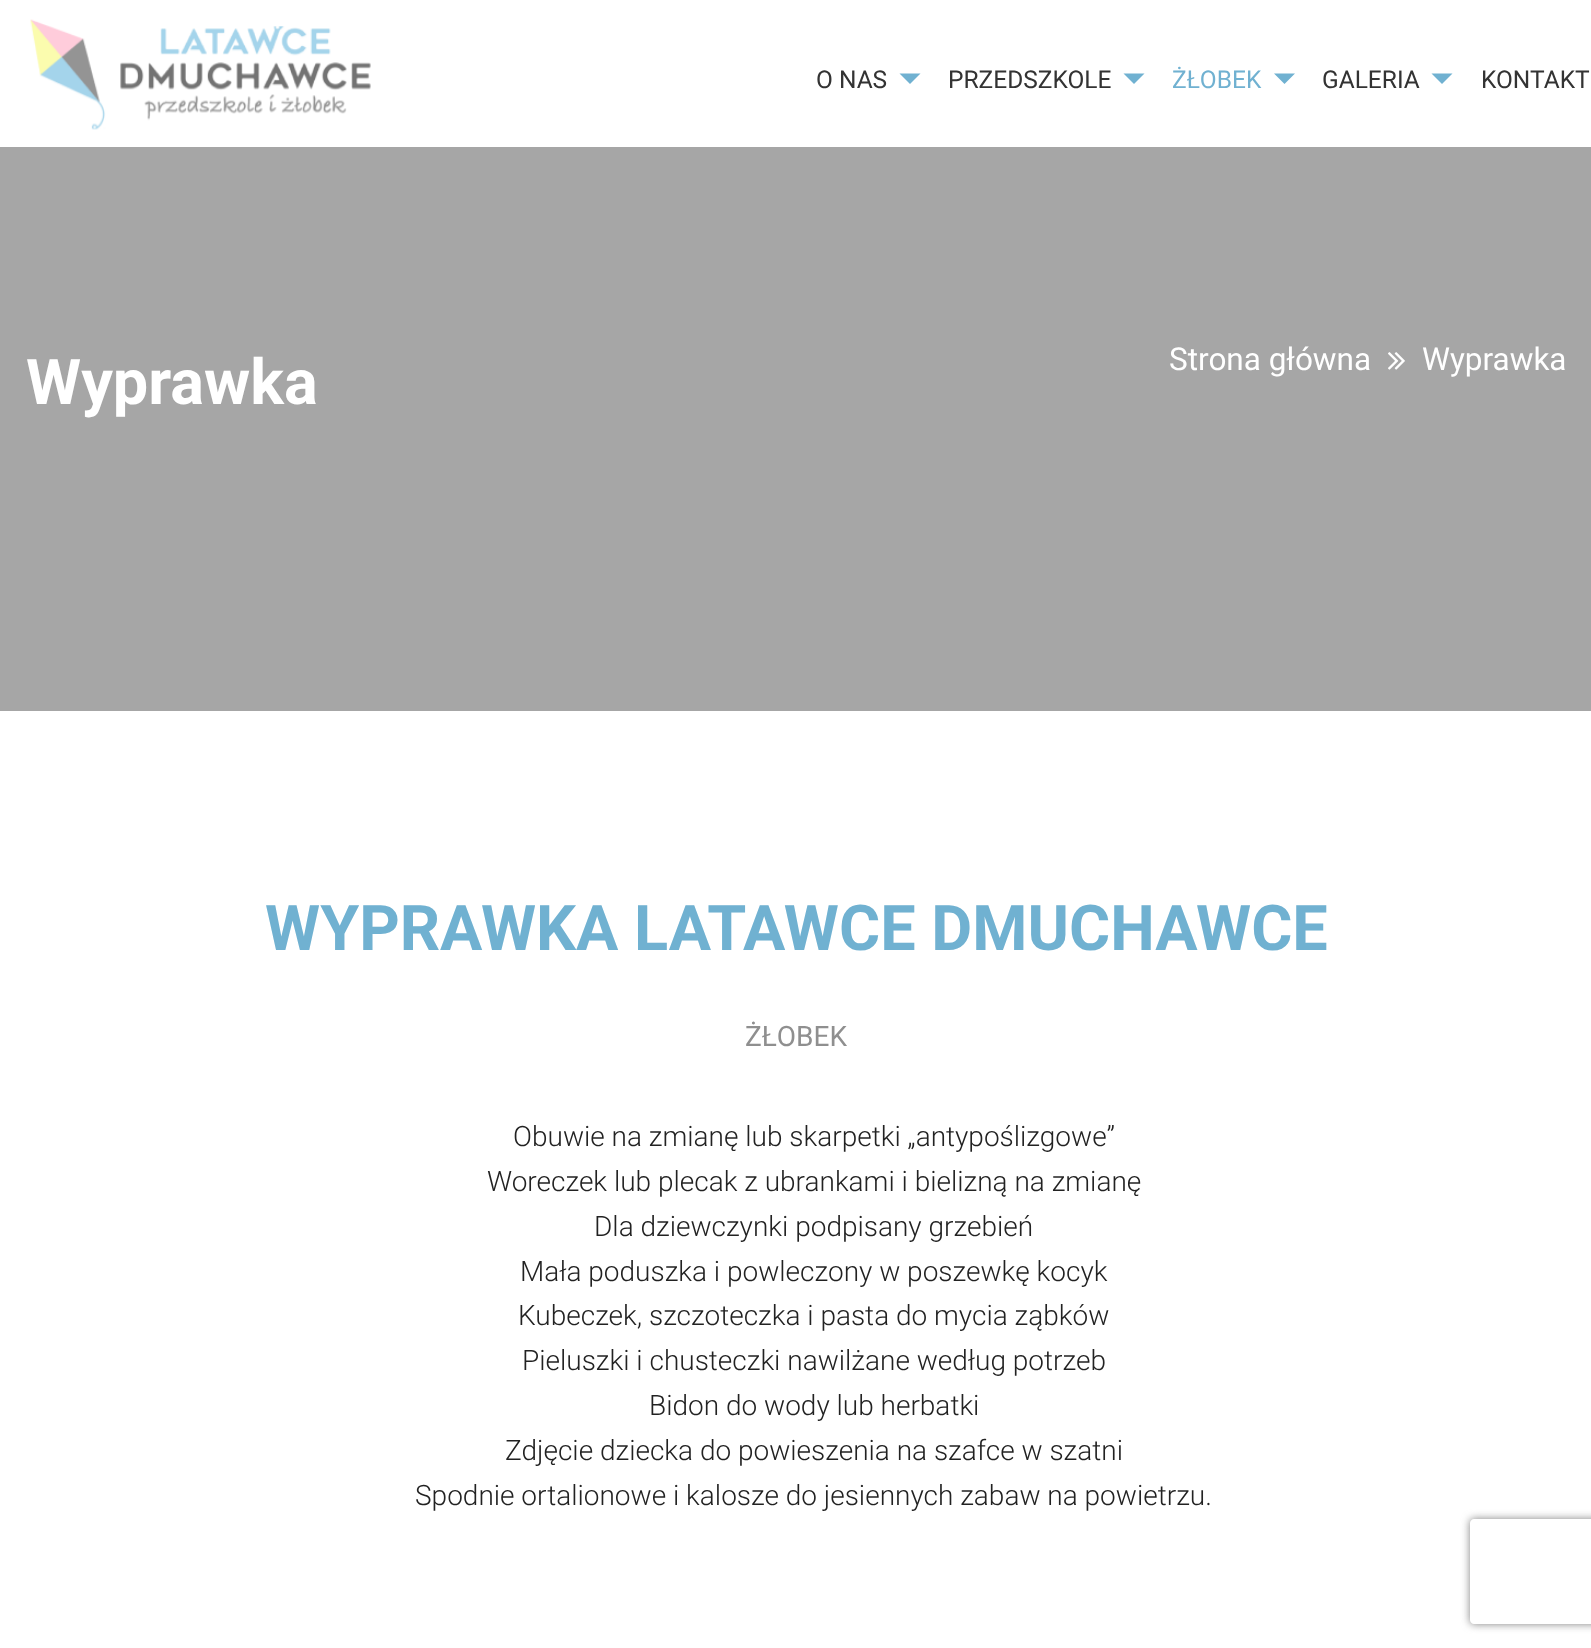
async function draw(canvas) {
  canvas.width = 1591
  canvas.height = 1648
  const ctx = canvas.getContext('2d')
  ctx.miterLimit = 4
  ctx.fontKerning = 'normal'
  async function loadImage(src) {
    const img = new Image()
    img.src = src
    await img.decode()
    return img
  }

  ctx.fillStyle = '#fff'
  ctx.fillRect(0, 0, 1591, 1648)
  ctx.drawImage(await loadImage('image0.png'), 30, 19, 341, 111)
  ctx.font = '24.5px Roboto'
  ctx.fillStyle = '#333'
  ctx.fillText('O NAS', 816, 88)
  ctx.fillStyle = '#70b1d1'
  ctx.beginPath()
  ctx.moveTo(899.5, 73.5)
  ctx.lineTo(920.5, 73.5)
  ctx.lineTo(910, 84)
  ctx.closePath()
  ctx.fill()
  ctx.fillStyle = '#333'
  ctx.fillText('PRZEDSZKOLE', 948, 88)
  ctx.fillStyle = '#70b1d1'
  ctx.beginPath()
  ctx.moveTo(1123.5, 73.5)
  ctx.lineTo(1144.5, 73.5)
  ctx.lineTo(1134, 84)
  ctx.closePath()
  ctx.fill()
  ctx.fillText('ŻŁOBEK', 1172, 88)
  ctx.beginPath()
  ctx.moveTo(1274, 73.5)
  ctx.lineTo(1295, 73.5)
  ctx.lineTo(1284.5, 84)
  ctx.closePath()
  ctx.fill()
  ctx.fillStyle = '#333'
  ctx.fillText('GALERIA', 1322, 88)
  ctx.fillStyle = '#70b1d1'
  ctx.beginPath()
  ctx.moveTo(1431.5, 73.5)
  ctx.lineTo(1452.5, 73.5)
  ctx.lineTo(1442, 84)
  ctx.closePath()
  ctx.fill()
  ctx.fillStyle = '#333'
  ctx.fillText('KONTAKT', 1481, 88)
  ctx.fillStyle = '#a6a6a6'
  ctx.fillRect(0, 147, 1591, 564)
  ctx.font = 'bold 63px Roboto'
  ctx.fillStyle = '#fff'
  ctx.fillText('Wyprawka', 26, 404)
  ctx.font = '31.5px Roboto'
  ctx.fillText('Strona główna', 1169, 370)
  ctx.drawImage(await loadImage('image1.png'), 1388, 352, 17, 18)
  ctx.fillText('Wyprawka', 1422, 370)
  ctx.font = 'bold 63px Roboto'
  ctx.fillStyle = '#70b1d1'
  ctx.fillText('WYPRAWKA LATAWCE DMUCHAWCE', 265, 950)
  ctx.font = '28px Roboto'
  ctx.fillStyle = '#8f8f8f'
  ctx.fillText('ŻŁOBEK', 745, 1046)
  ctx.font = '300 28px Roboto'
  ctx.fillStyle = '#222'
  ctx.fillText('Obuwie na zmianę lub skarpetki „antypoślizgowe”', 513, 1146)
  ctx.fillText('Woreczek lub plecak z ubrankami i bielizną na zmianę', 487, 1191)
  ctx.fillText('Dla dziewczynki podpisany grzebień', 594, 1236)
  ctx.fillText('Mała poduszka i powleczony w poszewkę kocyk', 520, 1281)
  ctx.fillText('Kubeczek, szczoteczka i pasta do mycia ząbków', 518, 1325)
  ctx.fillText('Pieluszki i chusteczki nawilżane według potrzeb', 522, 1370)
  ctx.fillText('Bidon do wody lub herbatki', 649, 1415)
  ctx.fillText('Zdjęcie dziecka do powieszenia na szafce w szatni', 505, 1460)
  ctx.fillText('Spodnie ortalionowe i kalosze do jesiennych zabaw na powietrzu.', 415, 1505)
  ctx.save()
  ctx.beginPath()
  ctx.moveTo(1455, 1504)
  ctx.lineTo(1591, 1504)
  ctx.lineTo(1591, 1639)
  ctx.lineTo(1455, 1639)
  ctx.closePath()
  ctx.moveTo(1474, 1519)
  ctx.lineTo(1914, 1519)
  ctx.bezierCurveTo(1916, 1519, 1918, 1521, 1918, 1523)
  ctx.lineTo(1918, 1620)
  ctx.bezierCurveTo(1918, 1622, 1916, 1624, 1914, 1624)
  ctx.lineTo(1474, 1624)
  ctx.bezierCurveTo(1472, 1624, 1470, 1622, 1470, 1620)
  ctx.lineTo(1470, 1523)
  ctx.bezierCurveTo(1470, 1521, 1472, 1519, 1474, 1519)
  ctx.closePath()
  ctx.clip('evenodd')
  ctx.fillStyle = '#808080'
  ctx.filter = 'blur(4.5px)'
  ctx.beginPath()
  ctx.roundRect(1470, 1519, 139, 105, 4)
  ctx.fill()
  ctx.filter = 'none'
  ctx.restore()
}

draw(document.querySelector('canvas'))
